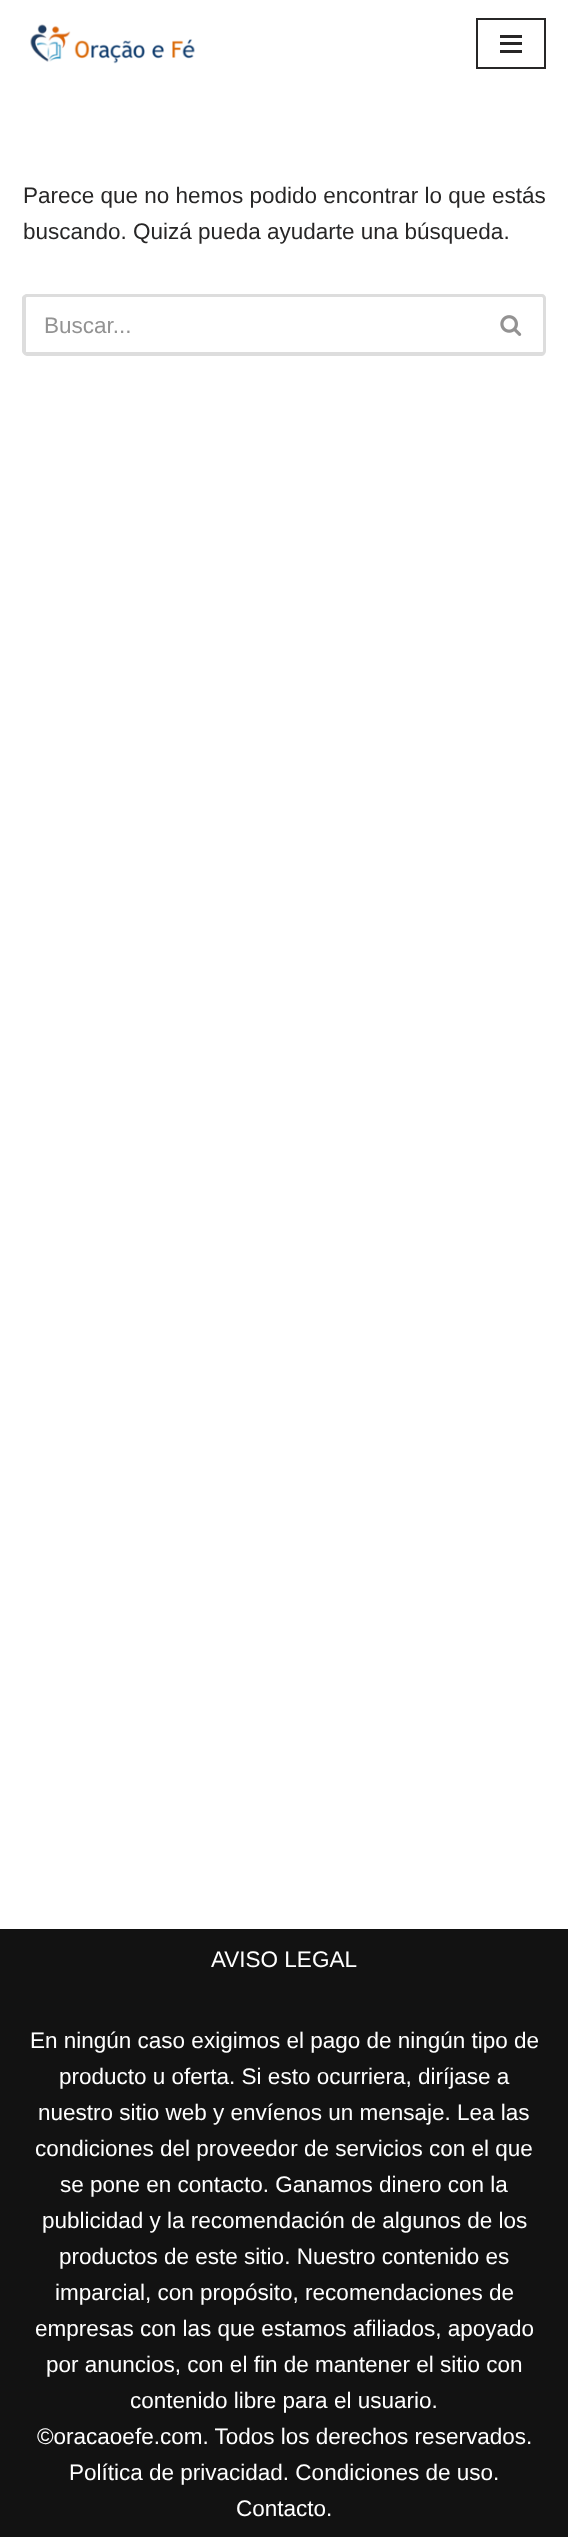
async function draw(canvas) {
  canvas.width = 568
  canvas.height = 2537
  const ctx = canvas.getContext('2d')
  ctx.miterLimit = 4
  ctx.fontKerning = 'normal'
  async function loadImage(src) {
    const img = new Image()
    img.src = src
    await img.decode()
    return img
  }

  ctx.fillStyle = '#fff'
  ctx.fillRect(0, 0, 568, 2537)
  ctx.drawImage(await loadImage('image0.png'), 30, 24, 165, 40)
  ctx.strokeStyle = '#272626'
  ctx.lineWidth = 2
  ctx.strokeRect(477, 19, 68, 49)
  ctx.fillStyle = '#272626'
  ctx.fillRect(500, 35, 22, 3)
  ctx.fillRect(500, 42, 22, 3)
  ctx.fillRect(500, 50, 22, 3)
  ctx.font = '22.5px Liberation Sans'
  ctx.fillText('Parece que no hemos podido encontrar lo que estás', 23, 203)
  ctx.fillText('buscando. Quizá pueda ayudarte una búsqueda.', 23, 239)
  ctx.fillStyle = '#ddd'
  ctx.beginPath()
  ctx.moveTo(27, 294)
  ctx.lineTo(478, 294)
  ctx.lineTo(478, 356)
  ctx.lineTo(27, 356)
  ctx.bezierCurveTo(25, 356, 22, 353, 22, 351)
  ctx.lineTo(22, 298)
  ctx.bezierCurveTo(22, 296, 25, 294, 27, 294)
  ctx.closePath()
  ctx.moveTo(27, 297)
  ctx.lineTo(478, 297)
  ctx.lineTo(478, 352)
  ctx.lineTo(27, 352)
  ctx.bezierCurveTo(26, 352, 26, 352, 26, 351)
  ctx.lineTo(26, 298)
  ctx.bezierCurveTo(26, 298, 26, 297, 27, 297)
  ctx.closePath()
  ctx.fill('evenodd')
  ctx.fillStyle = '#939393'
  ctx.fillText('Buscar...', 44, 333)
  ctx.fillStyle = '#ddd'
  ctx.beginPath()
  ctx.moveTo(478, 294)
  ctx.lineTo(542, 294)
  ctx.bezierCurveTo(544, 294, 546, 296, 546, 298)
  ctx.lineTo(546, 351)
  ctx.bezierCurveTo(546, 353, 544, 356, 542, 356)
  ctx.lineTo(478, 356)
  ctx.closePath()
  ctx.moveTo(478, 297)
  ctx.lineTo(542, 297)
  ctx.bezierCurveTo(542, 297, 543, 298, 543, 298)
  ctx.lineTo(543, 351)
  ctx.bezierCurveTo(543, 352, 542, 352, 542, 352)
  ctx.lineTo(478, 352)
  ctx.closePath()
  ctx.fill('evenodd')
  ctx.drawImage(await loadImage('image1.png'), 500, 315, 22, 21)
  ctx.fillStyle = '#121212'
  ctx.fillRect(0, 1929, 568, 608)
  ctx.fillStyle = '#fff'
  ctx.fillText('AVISO LEGAL', 211, 1967)
  ctx.fillText('En ningún caso exigimos el pago de ningún tipo de', 30, 2048)
  ctx.fillText('producto u oferta. Si esto ocurriera, diríjase a', 59, 2084)
  ctx.fillText('nuestro sitio web y envíenos un mensaje. Lea las', 38, 2120)
  ctx.fillText('condiciones del proveedor de servicios con el que', 35, 2156)
  ctx.fillText('se pone en contacto. Ganamos dinero con la', 60, 2192)
  ctx.fillText('publicidad y la recomendación de algunos de los', 42, 2228)
  ctx.fillText('productos de este sitio. Nuestro contenido es', 59, 2264)
  ctx.fillText('imparcial, con propósito, recomendaciones de', 55, 2300)
  ctx.fillText('empresas con las que estamos afiliados, apoyado', 35, 2336)
  ctx.fillText('por anuncios, con el fin de mantener el sitio con', 46, 2372)
  ctx.fillText('contenido libre para el usuario.', 130, 2408)
  ctx.fillText('©oracaoefe.com. Todos los derechos reservados.', 37, 2444)
  ctx.fillText('Política de privacidad. Condiciones de uso.', 69, 2480)
  ctx.fillText('Contacto.', 236, 2516)
}

draw(document.querySelector('canvas'))
